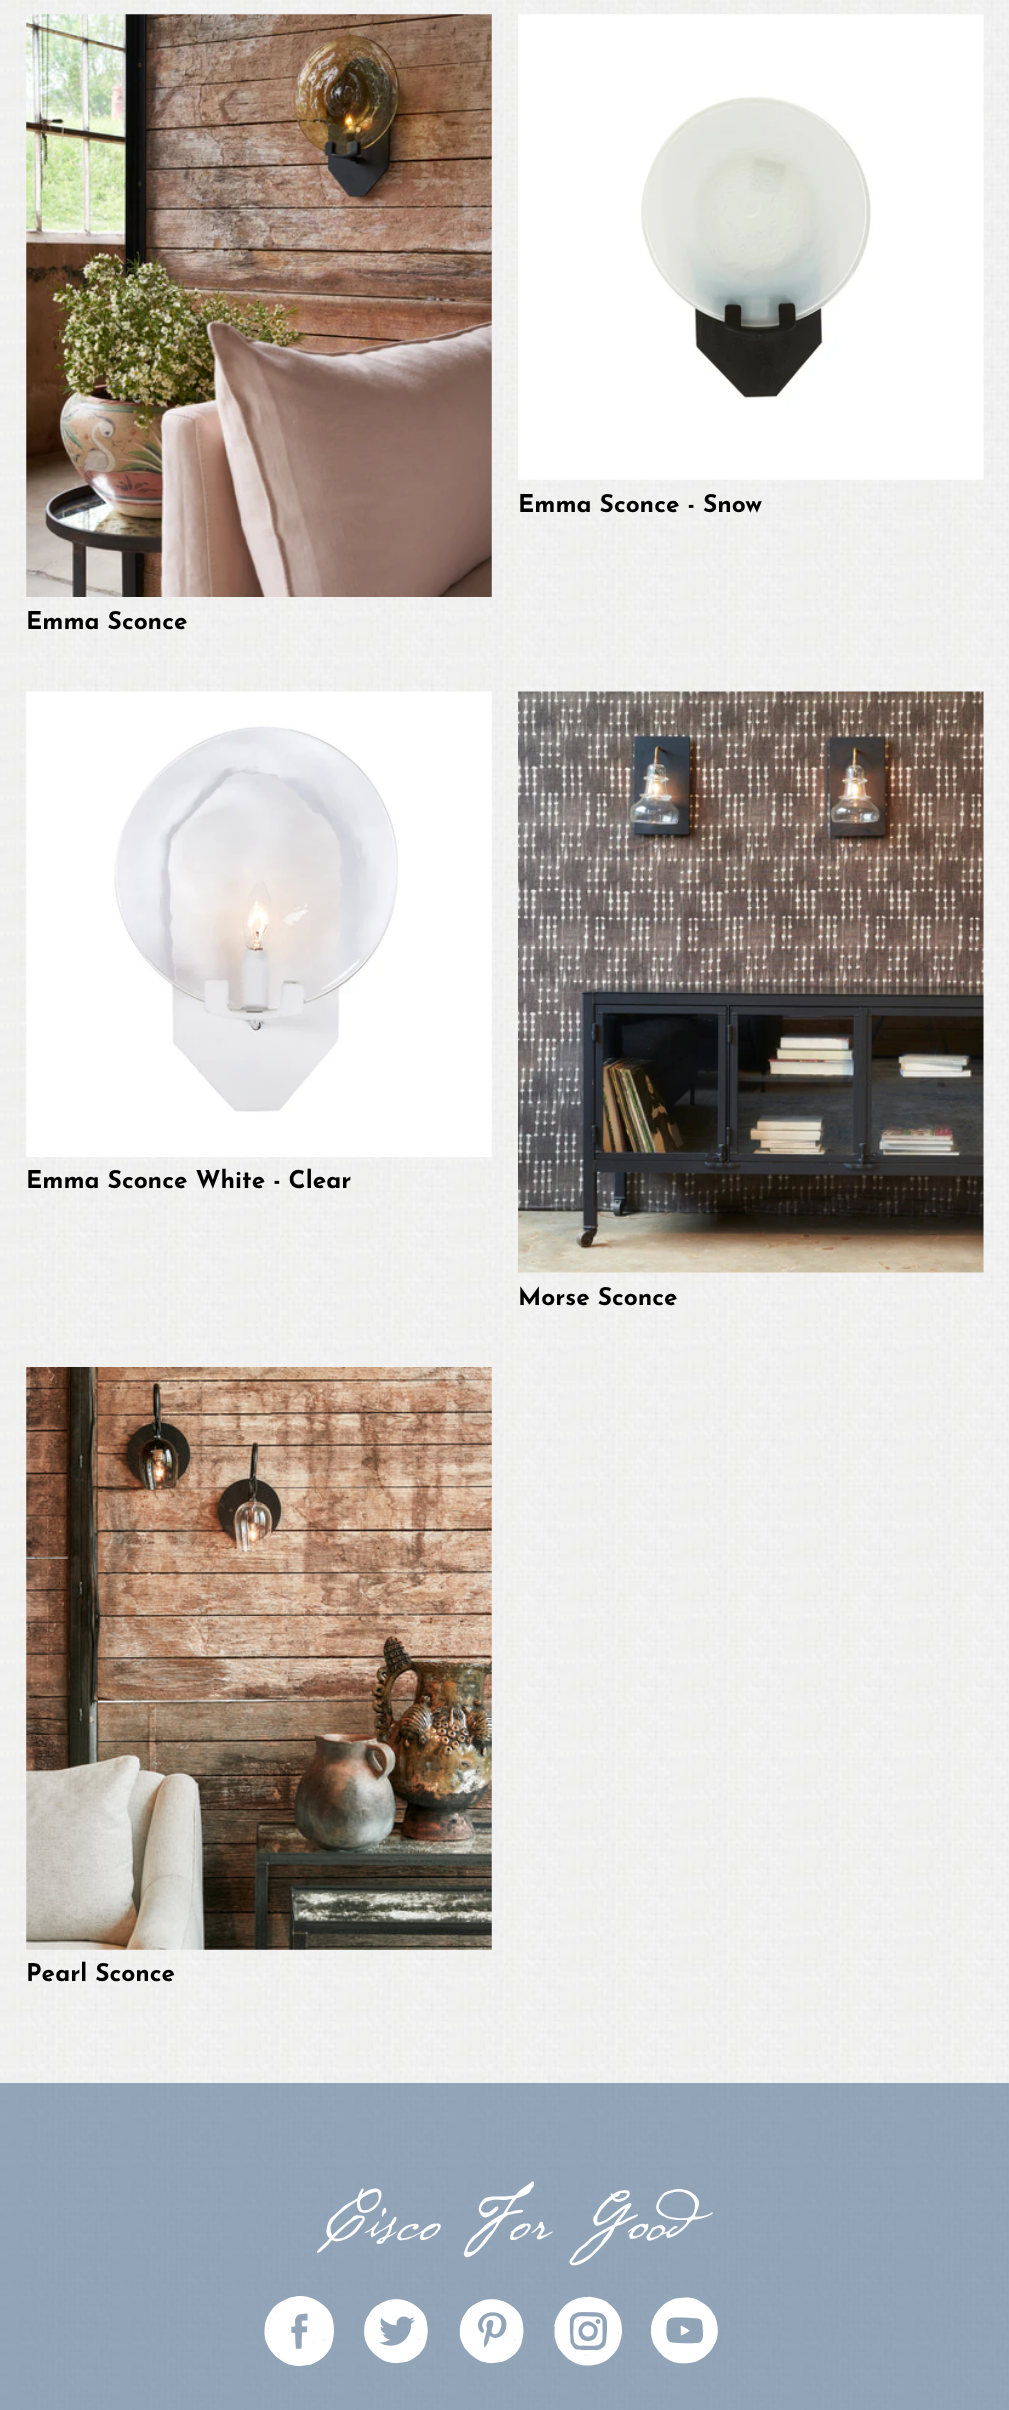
async function draw(canvas) {
  canvas.width = 1009
  canvas.height = 2410
  const ctx = canvas.getContext('2d')
  ctx.miterLimit = 4
  ctx.fontKerning = 'normal'
  async function loadImage(src) {
    const img = new Image()
    img.src = src
    await img.decode()
    return img
  }

  ctx.fillStyle = '#fff'
  ctx.fillRect(0, 0, 1009, 2410)
  ctx.drawImage(await loadImage('image0.png'), 0, 0, 1009, 2410)
  ctx.drawImage(await loadImage('image1.png'), 518, 14, 466, 466)
  ctx.font = 'bold 24.5px Josefin Sans'
  ctx.fillStyle = '#000'
  ctx.fillText('Emma Sconce - Snow', 518, 512)
  ctx.drawImage(await loadImage('image2.png'), 26, 14, 466, 583)
  ctx.fillText('Emma Sconce', 26, 629)
  ctx.drawImage(await loadImage('image3.png'), 26, 691, 466, 466)
  ctx.fillText('Emma Sconce White - Clear', 26, 1188)
  ctx.drawImage(await loadImage('image4.png'), 518, 691, 466, 582)
  ctx.fillText('Morse Sconce', 518, 1305)
  ctx.drawImage(await loadImage('image5.png'), 26, 1367, 466, 583)
  ctx.fillText('Pearl Sconce', 26, 1981)
  ctx.fillStyle = '#506e9096'
  ctx.fillRect(0, 2083, 1009, 327)
  ctx.font = '70px "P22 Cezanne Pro"'
  ctx.fillStyle = '#fff'
  ctx.fillText('Cisco For Good', 324, 2236)
  ctx.drawImage(await loadImage('image6.png'), 264, 2296, 70, 70)
  ctx.drawImage(await loadImage('image7.png'), 364, 2299, 64, 65)
  ctx.drawImage(await loadImage('image8.png'), 459, 2299, 65, 65)
  ctx.drawImage(await loadImage('image9.png'), 554, 2296, 68, 70)
  ctx.drawImage(await loadImage('image10.png'), 651, 2297, 67, 67)
}

draw(document.querySelector('canvas'))
